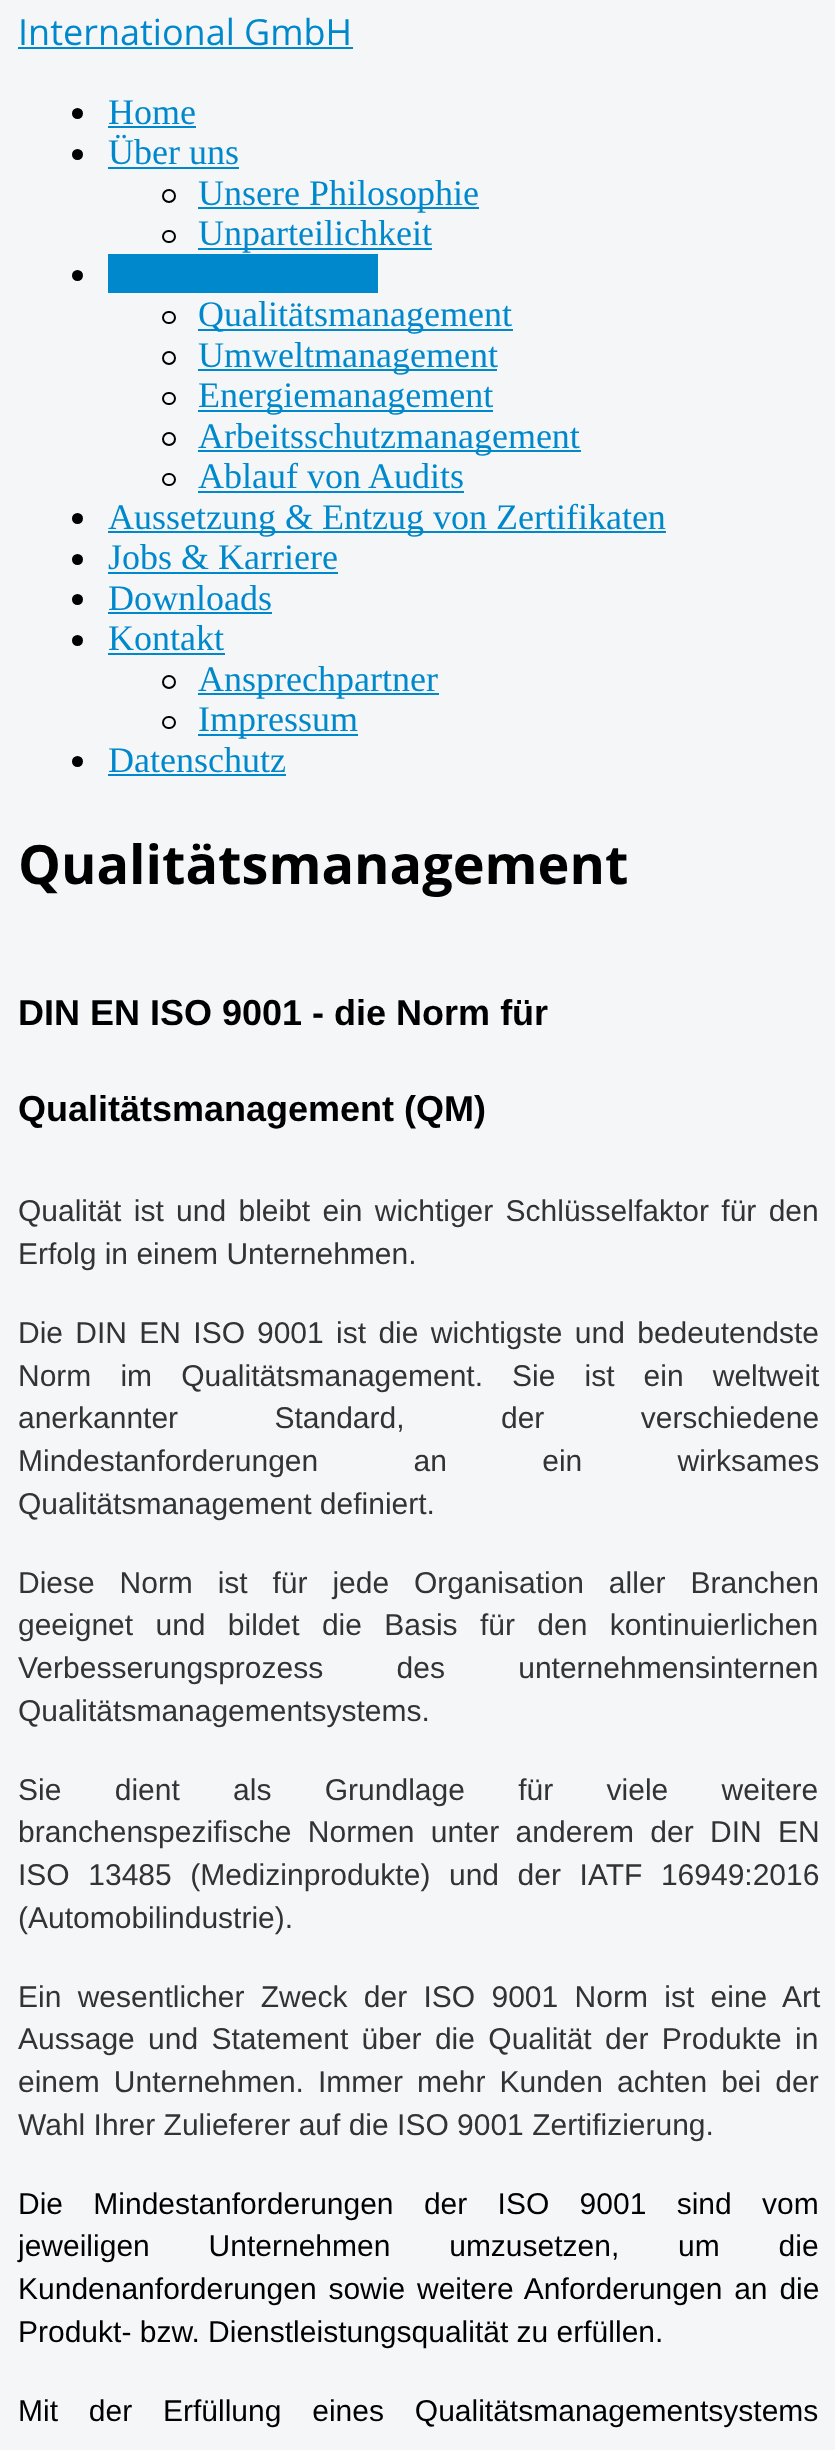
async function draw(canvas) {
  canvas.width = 835
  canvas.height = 2450
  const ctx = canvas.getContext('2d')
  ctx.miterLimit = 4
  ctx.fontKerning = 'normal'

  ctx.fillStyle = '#f4f6f7'
  ctx.fillRect(0, 0, 835, 2450)
  ctx.font = '36px Open Sans'
  ctx.fillStyle = '#08c'
  ctx.fillText('International GmbH', 18, 45)
  ctx.fillRect(18, 47, 335, 2)
  ctx.fillStyle = '#000'
  ctx.beginPath()
  ctx.arc(77.5, 113.5, 5.5, 0, 2 * Math.PI)
  ctx.fill()
  ctx.font = '36px Liberation Serif'
  ctx.fillStyle = '#08c'
  ctx.fillText('Home', 108, 124)
  ctx.fillRect(108, 126, 88, 2)
  ctx.fillStyle = '#000'
  ctx.beginPath()
  ctx.arc(77.5, 154.5, 5.5, 0, 2 * Math.PI)
  ctx.fill()
  ctx.fillStyle = '#08c'
  ctx.fillText('Über uns', 108, 164)
  ctx.fillRect(108, 167, 131, 2)
  ctx.beginPath()
  ctx.arc(169, 196, 6, 0, 2 * Math.PI)
  ctx.strokeStyle = '#000'
  ctx.lineWidth = 2
  ctx.stroke()
  ctx.fillRect(198, 207, 281, 2)
  ctx.fillText('Unsere Philosophie', 198, 205)
  ctx.beginPath()
  ctx.roundRect(163, 231, 12, 11, 5.5)
  ctx.stroke()
  ctx.fillRect(198, 248, 234, 2)
  ctx.fillText('Unparteilichkeit', 198, 245)
  ctx.fillStyle = '#000'
  ctx.beginPath()
  ctx.arc(77.5, 275.5, 5.5, 0, 2 * Math.PI)
  ctx.fill()
  ctx.fillStyle = '#08c'
  ctx.fillRect(108, 254, 270, 39)
  ctx.beginPath()
  ctx.roundRect(163, 312, 12, 11, 5.5)
  ctx.stroke()
  ctx.fillRect(198, 329, 315, 2)
  ctx.fillText('Qualitätsmanagement', 198, 326)
  ctx.beginPath()
  ctx.arc(169, 358, 6, 0, 2 * Math.PI)
  ctx.stroke()
  ctx.fillRect(198, 369, 299, 2)
  ctx.fillText('Umweltmanagement', 198, 367)
  ctx.beginPath()
  ctx.roundRect(163, 393, 12, 11, 5.5)
  ctx.stroke()
  ctx.fillRect(198, 410, 295, 2)
  ctx.fillText('Energiemanagement', 198, 407)
  ctx.beginPath()
  ctx.arc(169, 439, 6, 0, 2 * Math.PI)
  ctx.stroke()
  ctx.fillRect(198, 450, 383, 2)
  ctx.fillText('Arbeitsschutzmanagement', 198, 448)
  ctx.beginPath()
  ctx.roundRect(163, 474, 12, 11, 5.5)
  ctx.stroke()
  ctx.fillText('Ablauf von Audits', 198, 488)
  ctx.fillRect(198, 491, 266, 2)
  ctx.fillStyle = '#000'
  ctx.beginPath()
  ctx.arc(77.5, 518.5, 5.5, 0, 2 * Math.PI)
  ctx.fill()
  ctx.fillStyle = '#08c'
  ctx.fillRect(108, 531, 558, 2)
  ctx.fillText('Aussetzung & Entzug von Zertifikaten', 108, 529)
  ctx.fillStyle = '#000'
  ctx.beginPath()
  ctx.arc(77.5, 559.5, 5.5, 0, 2 * Math.PI)
  ctx.fill()
  ctx.fillStyle = '#08c'
  ctx.fillText('Jobs & Karriere', 108, 569)
  ctx.fillRect(108, 572, 230, 2)
  ctx.fillStyle = '#000'
  ctx.beginPath()
  ctx.arc(77.5, 599.5, 5.5, 0, 2 * Math.PI)
  ctx.fill()
  ctx.fillStyle = '#08c'
  ctx.fillText('Downloads', 108, 610)
  ctx.fillRect(108, 612, 164, 2)
  ctx.fillStyle = '#000'
  ctx.beginPath()
  ctx.arc(77.5, 640.5, 5.5, 0, 2 * Math.PI)
  ctx.fill()
  ctx.fillStyle = '#08c'
  ctx.fillText('Kontakt', 108, 650)
  ctx.fillRect(108, 653, 117, 2)
  ctx.beginPath()
  ctx.arc(169, 682, 6, 0, 2 * Math.PI)
  ctx.stroke()
  ctx.fillRect(198, 693, 241, 2)
  ctx.fillText('Ansprechpartner', 198, 691)
  ctx.beginPath()
  ctx.roundRect(163, 717, 12, 11, 5.5)
  ctx.stroke()
  ctx.fillRect(198, 734, 160, 2)
  ctx.fillText('Impressum', 198, 731)
  ctx.fillStyle = '#000'
  ctx.beginPath()
  ctx.arc(77.5, 761.5, 5.5, 0, 2 * Math.PI)
  ctx.fill()
  ctx.fillStyle = '#08c'
  ctx.fillText('Datenschutz', 108, 772)
  ctx.fillRect(108, 774, 178, 2)
  ctx.font = 'bold 54px Open Sans'
  ctx.fillStyle = '#000'
  ctx.fillText('Qualitätsmanagement', 18, 884)
  ctx.font = 'bold 36px Liberation Sans'
  ctx.fillText('DIN EN ISO 9001 - die Norm für', 18, 1025)
  ctx.fillText('Qualitätsmanagement (QM)', 18, 1121)
  ctx.wordSpacing = '4px'
  ctx.font = '30px Liberation Sans'
  ctx.fillStyle = '#333'
  ctx.fillText('Qualität ist und bleibt ein wichtiger Schlüsselfaktor für den', 18, 1221)
  ctx.wordSpacing = '0px'
  ctx.fillText('Erfolg in einem Unternehmen.', 18, 1264)
  ctx.wordSpacing = '4px'
  ctx.fillText('Die DIN EN ISO', 18, 1343)
  ctx.fillText('9001 ist die wichtigste und bedeutendste', 257, 1343)
  ctx.wordSpacing = '20.75px'
  ctx.fillText('Norm im Qualitätsmanagement. Sie ist ein weltweit', 18, 1386)
  ctx.wordSpacing = '88px'
  ctx.fillText('anerkannter Standard,', 18, 1428)
  ctx.fillText('der verschiedene', 501, 1428)
  ctx.wordSpacing = '87px'
  ctx.fillText('Mindestanforderungen an ein wirksames', 18, 1471)
  ctx.wordSpacing = '0px'
  ctx.fillText('Qualitätsmanagement definiert.', 18, 1514)
  ctx.wordSpacing = '16.5px'
  ctx.fillText('Diese Norm ist für jede Organisation aller Branchen', 18, 1593)
  ctx.wordSpacing = '14px'
  ctx.fillText('geeignet und bildet die Basis für den kontinuierlichen', 18, 1635)
  ctx.wordSpacing = '65px'
  ctx.fillText('Verbesserungsprozess des unternehmensinternen', 18, 1678)
  ctx.wordSpacing = '0px'
  ctx.fillText('Qualitätsmanagementsystems.', 18, 1721)
  ctx.wordSpacing = '45px'
  ctx.fillText('Sie dient als Grundlage für viele weitere', 18, 1800)
  ctx.wordSpacing = '8px'
  ctx.fillText('branchenspezifische Normen unter anderem der DIN EN', 18, 1842)
  ctx.wordSpacing = '10.25px'
  ctx.fillText('ISO 13485 (Medizinprodukte) und der IATF 16949:2016', 18, 1885)
  ctx.wordSpacing = '0px'
  ctx.fillText('(Automobilindustrie).', 18, 1928)
  ctx.wordSpacing = '8px'
  ctx.fillText('Ein wesentlicher Zweck der ISO 9001 Norm ist eine Art', 18, 2007)
  ctx.wordSpacing = '5px'
  ctx.fillText('Aussage und Statement über die Qualität der Produkte in', 18, 2049)
  ctx.wordSpacing = '5.75px'
  ctx.fillText('einem Unternehmen. Immer mehr Kunden achten bei der', 18, 2092)
  ctx.wordSpacing = '0px'
  ctx.fillText('Wahl Ihrer Zulieferer auf die ISO 9001 Zertifizierung.', 18, 2135)
  ctx.wordSpacing = '22px'
  ctx.fillStyle = '#000'
  ctx.fillText('Die Mindestanforderungen der ISO 9001 sind vom', 18, 2214)
  ctx.wordSpacing = '50.5px'
  ctx.fillText('jeweiligen Unternehmen umzusetzen, um die', 18, 2256)
  ctx.wordSpacing = '3.5px'
  ctx.fillText('Kundenanforderungen sowie weitere Anforderungen an die', 18, 2299)
  ctx.wordSpacing = '0px'
  ctx.fillText('Produkt- bzw. Dienstleistungsqualität zu erfüllen.', 18, 2342)
  ctx.wordSpacing = '22.5px'
  ctx.fillText('Mit der Erfüllung eines Qualitätsmanagementsystems', 18, 2421)
}

draw(document.querySelector('canvas'))
